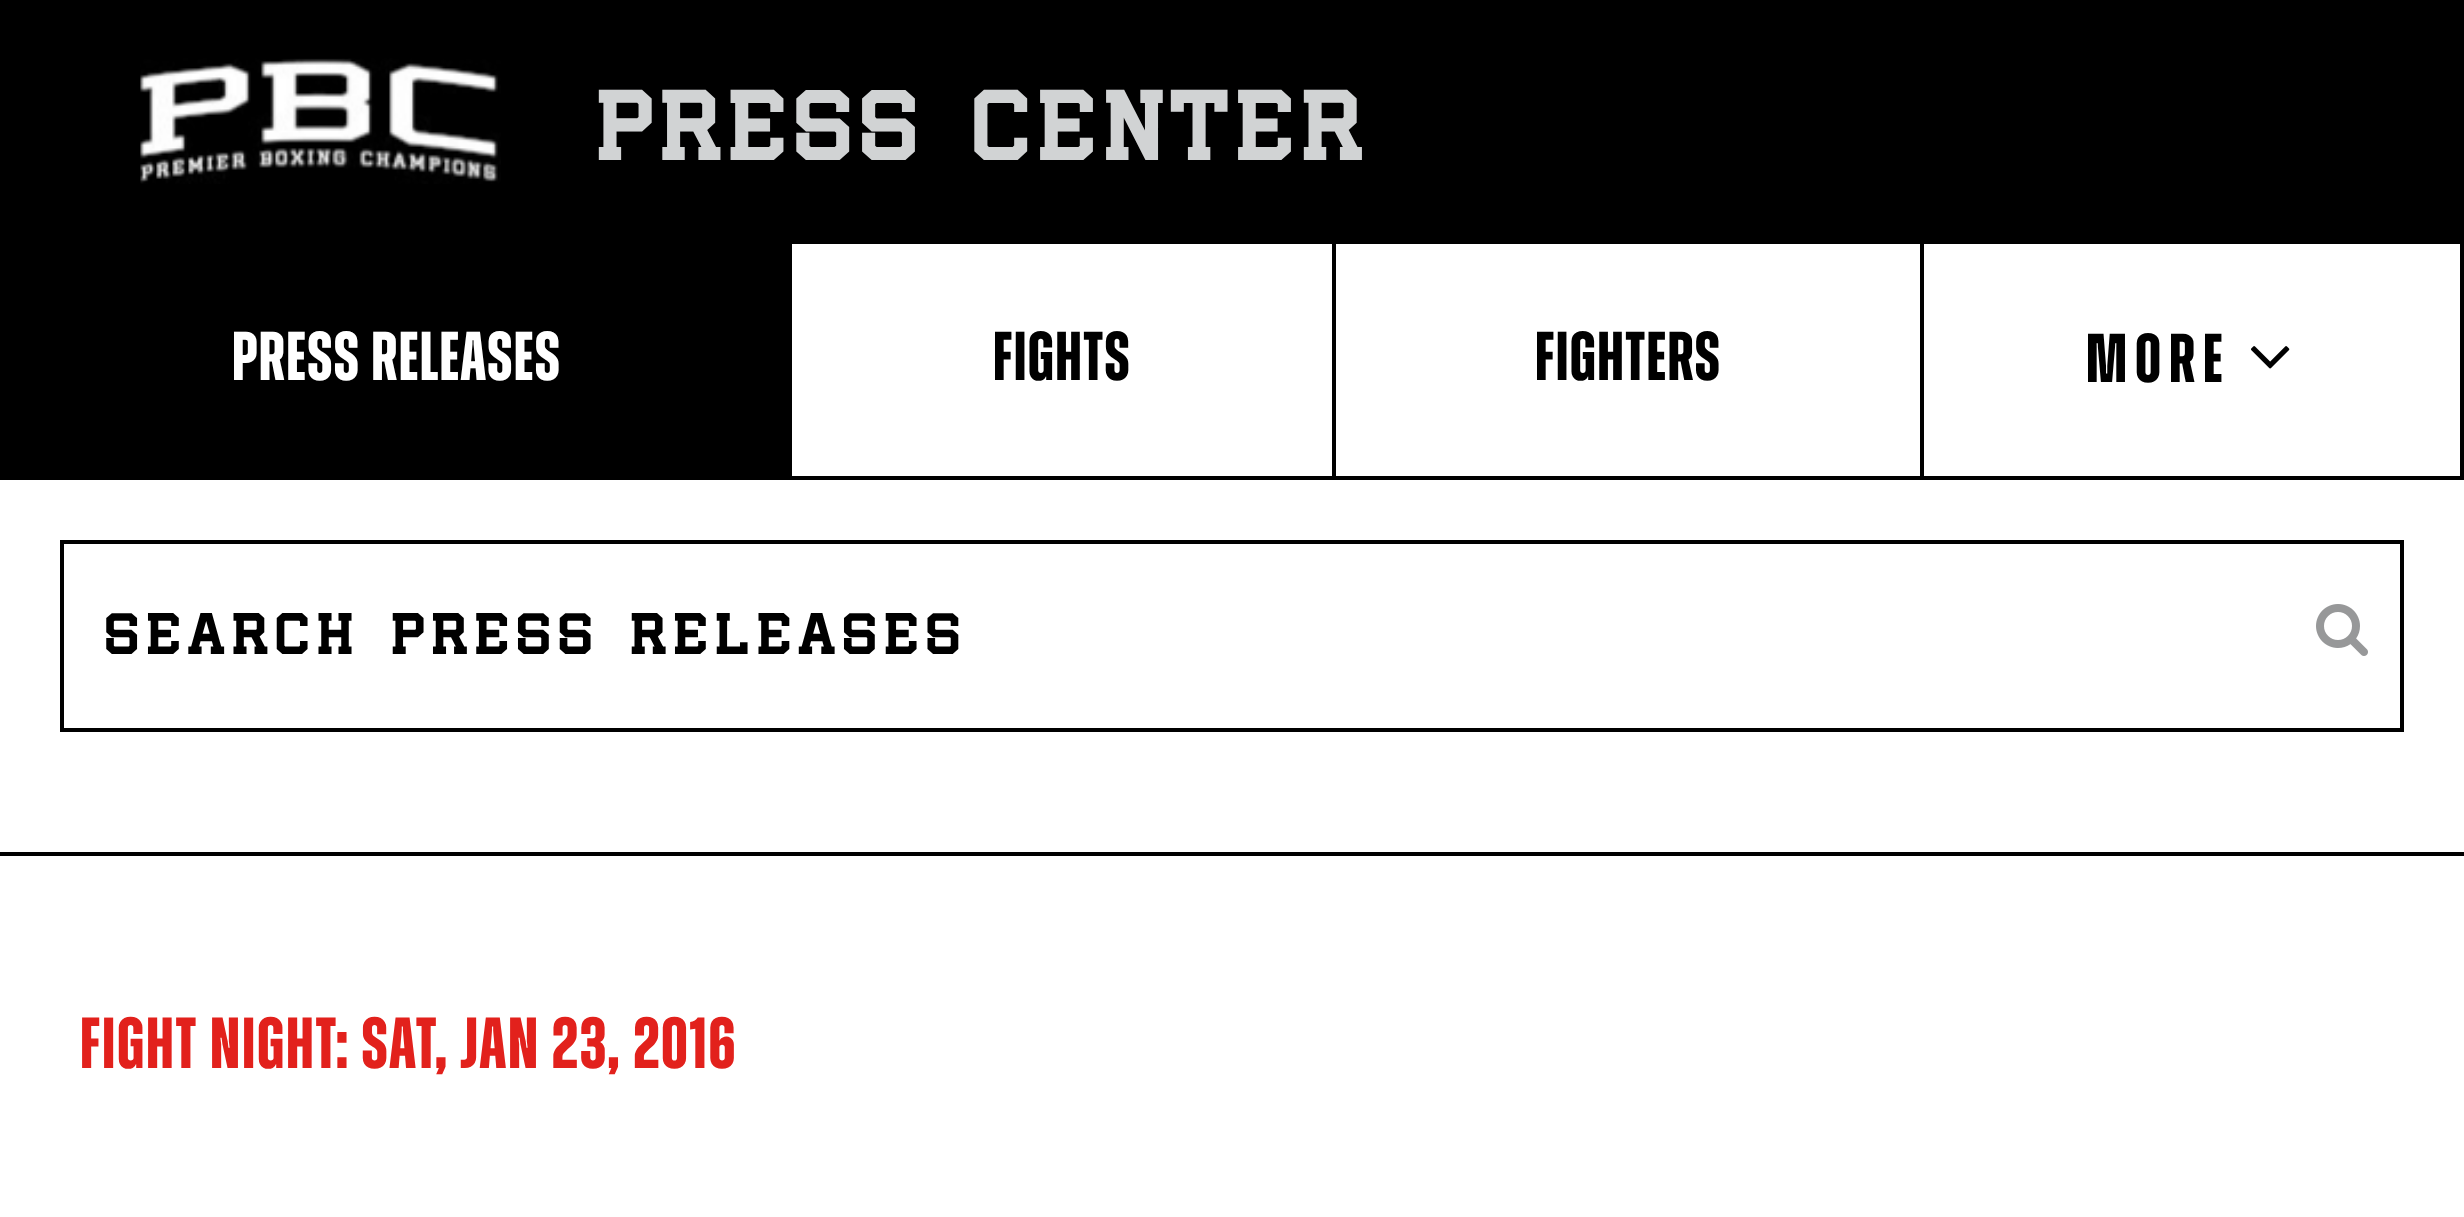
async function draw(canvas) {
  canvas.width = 2464
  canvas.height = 1217
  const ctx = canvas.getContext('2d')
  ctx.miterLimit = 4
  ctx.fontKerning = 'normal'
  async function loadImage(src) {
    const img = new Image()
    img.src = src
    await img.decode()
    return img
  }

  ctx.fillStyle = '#fff'
  ctx.fillRect(0, 0, 2464, 1217)
  ctx.fillStyle = '#000'
  ctx.fillRect(0, 0, 2464, 244)
  ctx.drawImage(await loadImage('image0.png'), 140, 58, 361, 126)
  ctx.letterSpacing = '8px'
  ctx.font = 'bold 96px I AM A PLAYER'
  ctx.fillStyle = '#d1d3d4'
  ctx.fillText('PRESS CENTER', 595, 160)
  ctx.fillStyle = '#000'
  ctx.fillRect(0, 852, 2464, 4)
  ctx.fillRect(0, 476, 1920, 4)
  ctx.fillRect(0, 244, 4, 236)
  ctx.fillRect(4, 244, 784, 232)
  ctx.letterSpacing = '1.4px'
  ctx.font = 'bold 69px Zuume'
  ctx.fillStyle = '#fff'
  ctx.fillText('PRESS RELEASES', 232, 380)
  ctx.fillStyle = '#000'
  ctx.fillRect(788, 244, 4, 236)
  ctx.fillText('FIGHTS', 993, 380)
  ctx.fillRect(1332, 244, 4, 236)
  ctx.fillText('FIGHTERS', 1535, 380)
  ctx.fillRect(2460, 244, 4, 236)
  ctx.fillRect(1920, 476, 544, 4)
  ctx.fillRect(1920, 244, 4, 236)
  ctx.letterSpacing = '8px'
  ctx.fillText('MORE', 2086, 382)
  ctx.drawImage(await loadImage('image1.png'), 2251, 346, 39, 23)
  ctx.strokeStyle = '#000'
  ctx.lineWidth = 4
  ctx.strokeRect(62, 542, 2340, 188)
  ctx.font = 'bold 56px I AM A PLAYER'
  ctx.fillText('SEARCH PRESS RELEASES', 104, 654)
  ctx.drawImage(await loadImage('image2.png'), 2316, 604, 52, 52)
  ctx.letterSpacing = '1.8px'
  ctx.font = 'bold 72px Zuume'
  ctx.fillStyle = '#e2211c'
  ctx.fillText('FIGHT NIGHT: SAT, JAN 23, 2016', 80, 1068)
}

draw(document.querySelector('canvas'))
